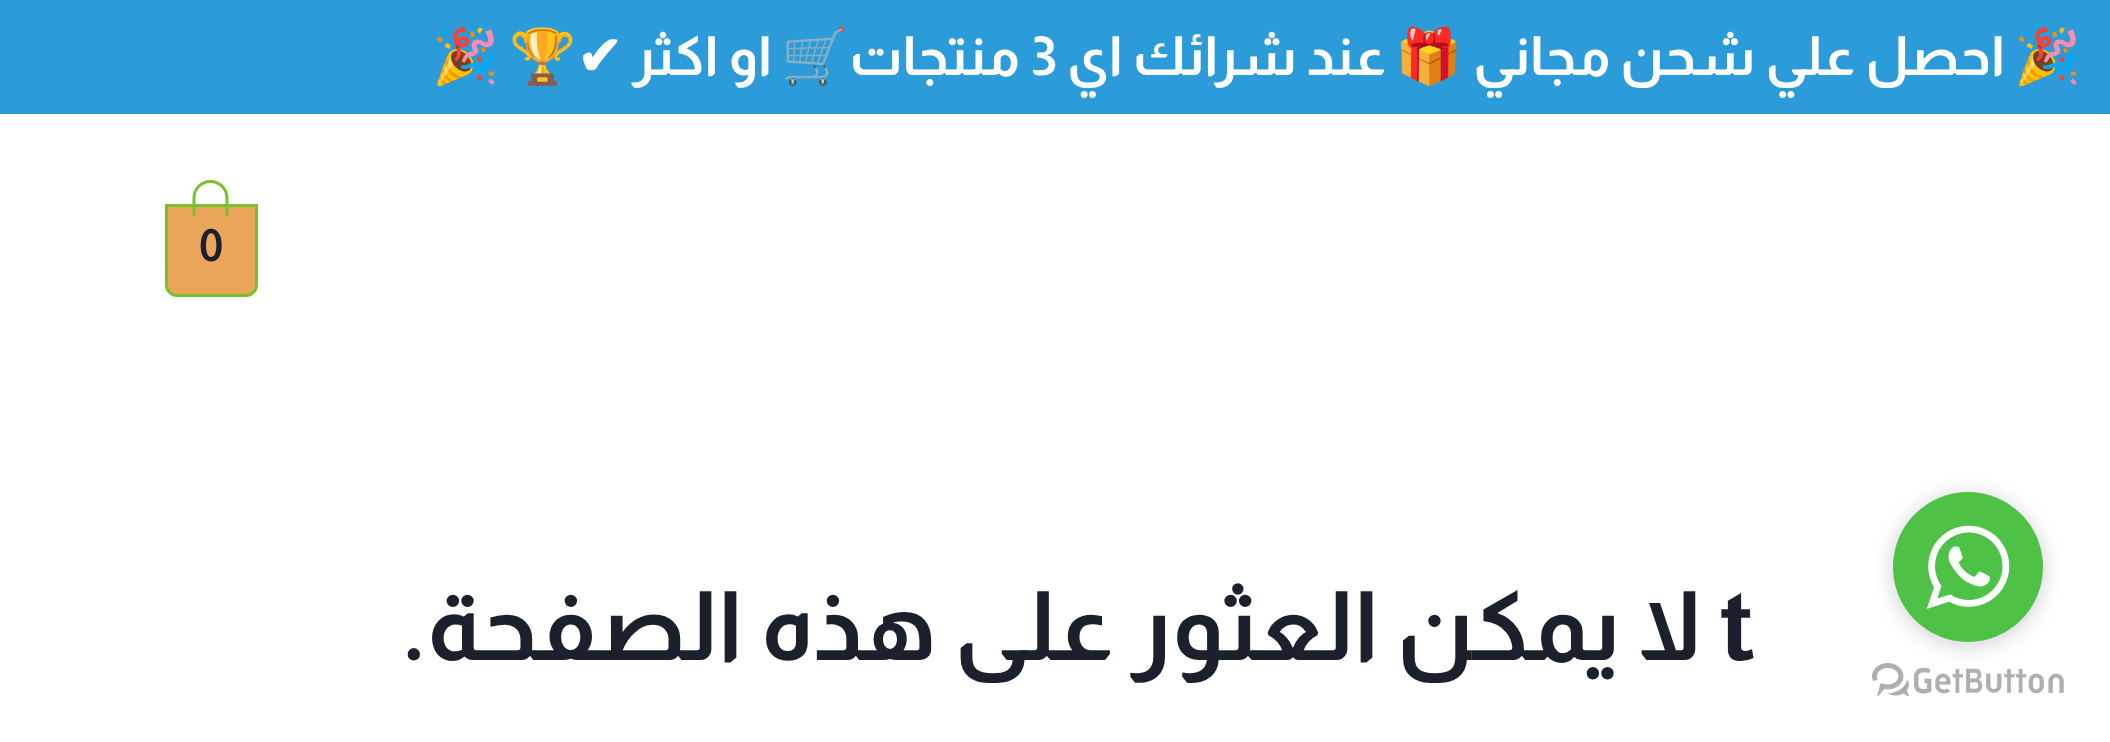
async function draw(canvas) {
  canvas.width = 2110
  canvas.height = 742
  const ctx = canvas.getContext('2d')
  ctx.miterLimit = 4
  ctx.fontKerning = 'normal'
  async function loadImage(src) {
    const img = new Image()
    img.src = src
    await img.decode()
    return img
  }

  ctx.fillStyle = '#fff'
  ctx.fillRect(0, 0, 2110, 742)
  ctx.fillStyle = '#2b9bda'
  ctx.fillRect(0, 0, 2110, 114)
  ctx.direction = 'rtl'
  ctx.font = 'bold 54px Noto Color Emoji'
  ctx.fillStyle = '#fff'
  ctx.fillText('🎉', 2082, 75)
  ctx.font = 'bold 54px Almarai'
  ctx.fillText('احصل علي شحن مجاني', 2005, 75)
  ctx.font = 'bold 54px Noto Color Emoji'
  ctx.fillText('🎁', 1463, 75)
  ctx.font = 'bold 54px Almarai'
  ctx.fillText('عند شرائك اي', 1386, 75)
  ctx.direction = 'ltr'
  ctx.fillText('3', 1030, 75)
  ctx.direction = 'rtl'
  ctx.fillText('منتجات', 1020, 75)
  ctx.font = 'bold 54px Noto Color Emoji'
  ctx.fillText('🛒', 849, 75)
  ctx.font = 'bold 54px Almarai'
  ctx.fillText('او اكثر', 772, 75)
  ctx.font = 'bold 54px DejaVu Sans'
  ctx.fillText('✔', 622, 75)
  ctx.font = 'bold 54px Noto Color Emoji'
  ctx.fillText('🏆', 577, 75)
  ctx.fillText('🎉', 500, 75)
  ctx.fillStyle = '#eba65b'
  ctx.beginPath()
  ctx.roundRect(166.5, 205.5, 90, 90, [0, 0, 10.5, 10.5])
  ctx.fill()
  ctx.strokeStyle = '#75c32c'
  ctx.lineWidth = 3
  ctx.stroke()
  ctx.fillStyle = '#75c32c'
  ctx.beginPath()
  ctx.moveTo(210.5, 180)
  ctx.bezierCurveTo(220.5, 180, 228.5, 188, 228.5, 198)
  ctx.lineTo(228.5, 216)
  ctx.lineTo(192.5, 216)
  ctx.lineTo(192.5, 198)
  ctx.bezierCurveTo(192.5, 188, 200.5, 180, 210.5, 180)
  ctx.closePath()
  ctx.moveTo(210.5, 183)
  ctx.bezierCurveTo(219, 183, 225.5, 189.5, 225.5, 198)
  ctx.lineTo(225.5, 216)
  ctx.lineTo(195.5, 216)
  ctx.lineTo(195.5, 198)
  ctx.bezierCurveTo(195.5, 189.5, 202, 183, 210.5, 183)
  ctx.closePath()
  ctx.fill('evenodd')
  ctx.direction = 'ltr'
  ctx.font = 'bold 44px Almarai'
  ctx.fillStyle = '#1a202c'
  ctx.fillText('0', 199, 261)
  ctx.font = 'bold 96px Almarai'
  ctx.fillText('t', 1720, 660)
  ctx.direction = 'rtl'
  ctx.fillText('لا يمكن العثور على هذه الصفحة.', 1702, 660)
  ctx.drawImage(await loadImage('image1.png'), 1872, 663, 192, 33)
  ctx.fillStyle = '#88888866'
  ctx.filter = 'blur(10.5px)'
  ctx.beginPath()
  ctx.roundRect(1893, 495, 150, 150, 75)
  ctx.fill()
  ctx.filter = 'none'
  ctx.fillStyle = '#4dc247'
  ctx.beginPath()
  ctx.arc(1968, 567, 75, 0, 2 * Math.PI)
  ctx.fill()
  ctx.drawImage(await loadImage('image0.png'), 1926, 525, 84, 84)
}

draw(document.querySelector('canvas'))
